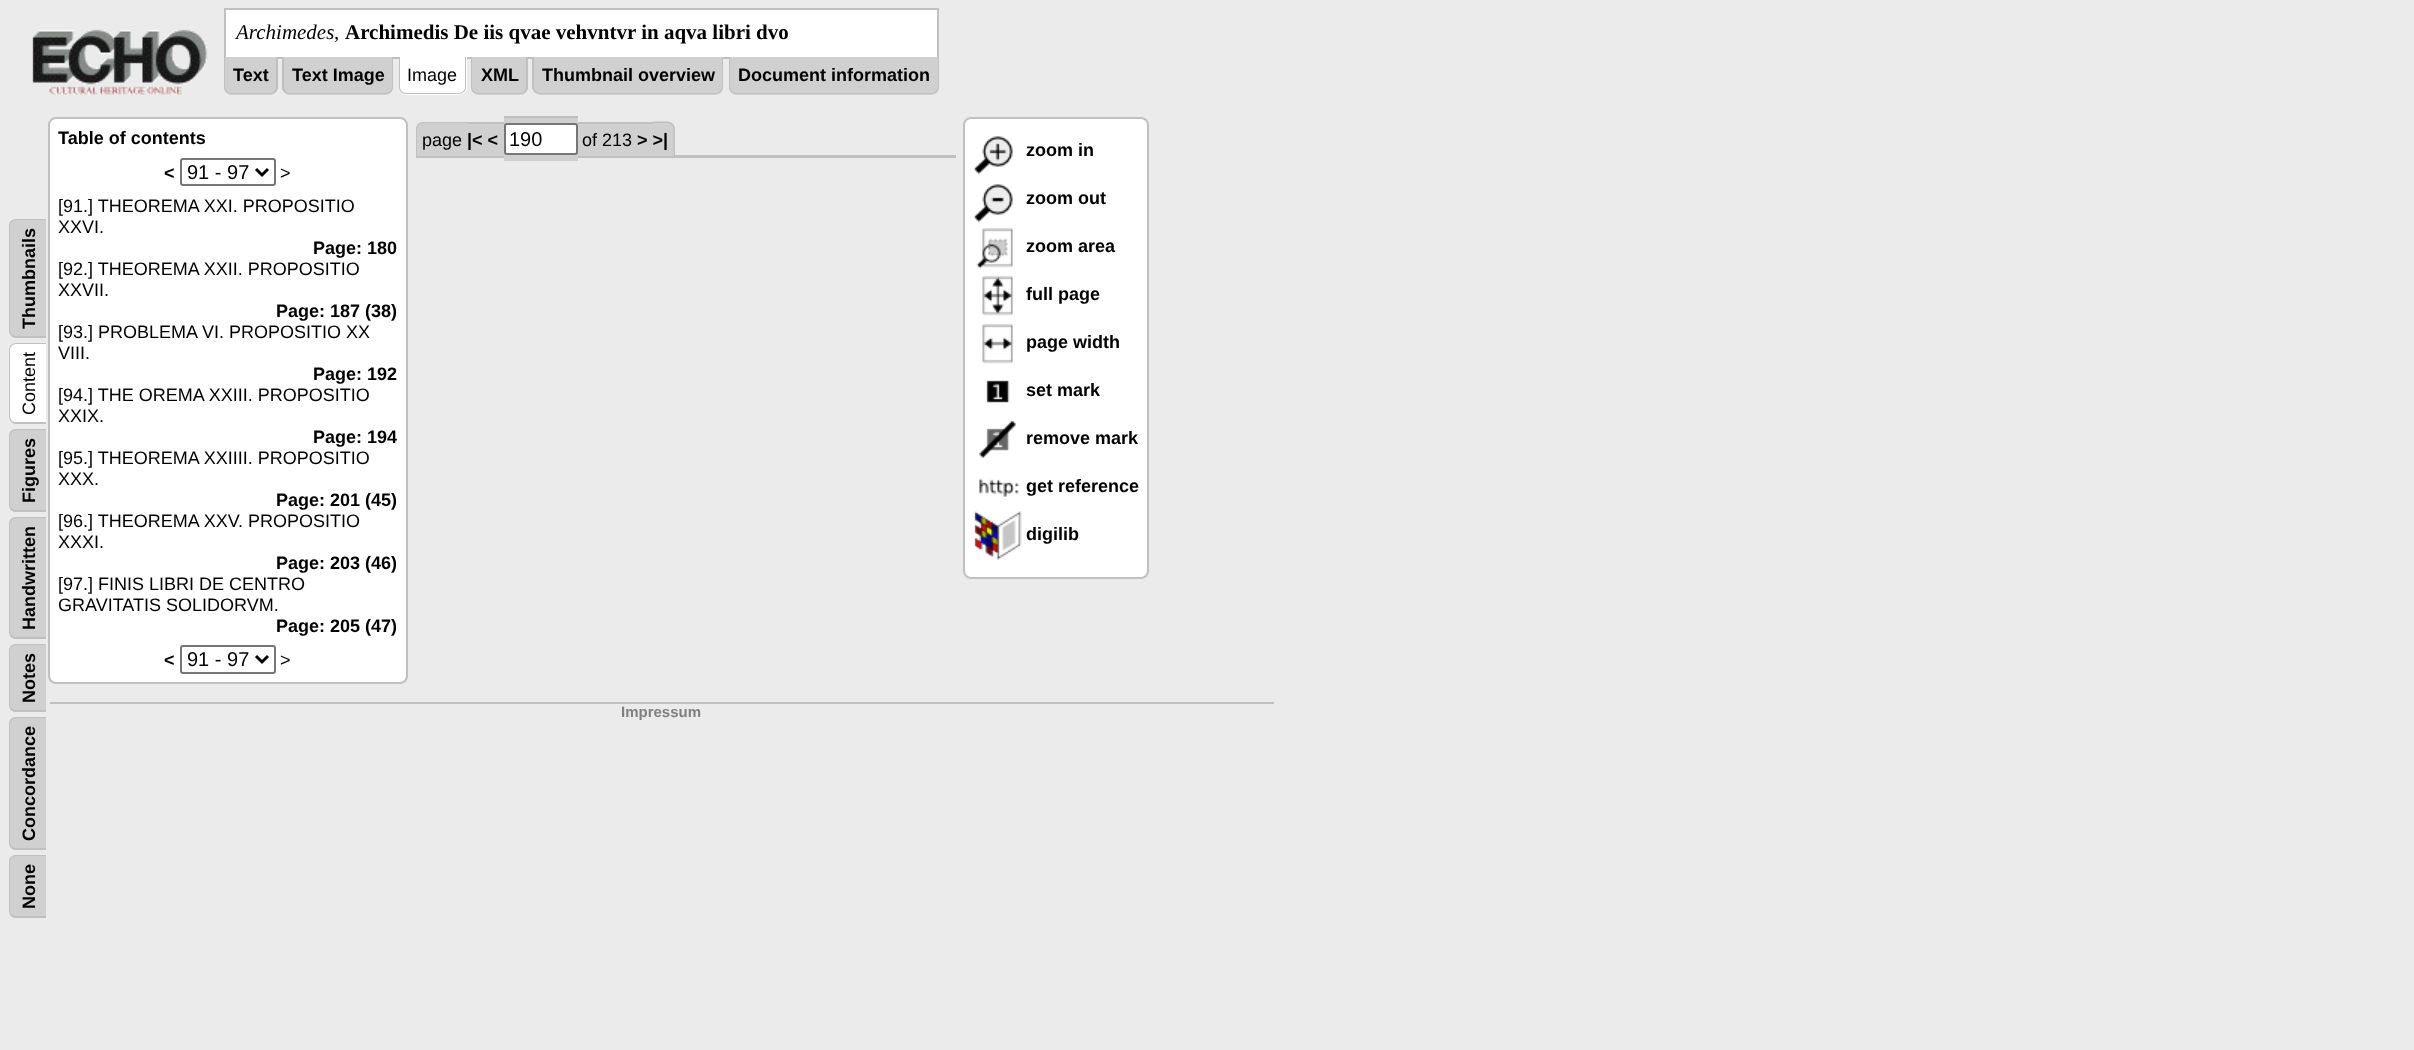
async function draw(canvas) {
  canvas.width = 2414
  canvas.height = 1050
  const ctx = canvas.getContext('2d')
  ctx.miterLimit = 4
  ctx.fontKerning = 'normal'
  async function loadImage(src) {
    const img = new Image()
    img.src = src
    await img.decode()
    return img
  }

  ctx.fillStyle = '#ebebeb'
  ctx.fillRect(0, 0, 2414, 1050)
  ctx.drawImage(await loadImage('image0.png'), 32, 29, 176, 66)
  ctx.fillStyle = '#fff'
  ctx.beginPath()
  ctx.rect(225, 9, 713, 49)
  ctx.fill()
  ctx.strokeStyle = '#c0c0c0'
  ctx.lineWidth = 2
  ctx.stroke()
  ctx.font = 'italic 21px Liberation Serif'
  ctx.fillStyle = '#000'
  ctx.fillText('Archimedes', 236, 39)
  ctx.font = '21px Liberation Serif'
  ctx.fillText(',', 334, 39)
  ctx.font = 'bold 21px Liberation Serif'
  ctx.fillText('Archimedis De iis qvae vehvntvr in aqva libri dvo', 345, 39)
  ctx.fillStyle = '#d0d0d0'
  ctx.beginPath()
  ctx.roundRect(224, 57, 54, 38, [0, 0, 8, 8])
  ctx.fill()
  ctx.fillStyle = '#c0c0c0'
  ctx.beginPath()
  ctx.moveTo(224, 57)
  ctx.lineTo(278, 57)
  ctx.lineTo(278, 87)
  ctx.bezierCurveTo(278, 91, 274, 94, 270, 94)
  ctx.lineTo(231, 94)
  ctx.bezierCurveTo(227, 94, 224, 91, 224, 87)
  ctx.closePath()
  ctx.moveTo(225, 57)
  ctx.lineTo(276, 57)
  ctx.lineTo(276, 87)
  ctx.bezierCurveTo(276, 90, 273, 93, 270, 93)
  ctx.lineTo(231, 93)
  ctx.bezierCurveTo(228, 93, 225, 90, 225, 87)
  ctx.closePath()
  ctx.fill('evenodd')
  ctx.font = 'bold 18px Liberation Sans'
  ctx.fillStyle = '#000'
  ctx.fillText('Text', 233, 81)
  ctx.fillStyle = '#d0d0d0'
  ctx.beginPath()
  ctx.roundRect(282, 57, 111, 38, [0, 0, 8, 8])
  ctx.fill()
  ctx.fillStyle = '#c0c0c0'
  ctx.beginPath()
  ctx.moveTo(282, 57)
  ctx.lineTo(393, 57)
  ctx.lineTo(393, 87)
  ctx.bezierCurveTo(393, 91, 390, 94, 386, 94)
  ctx.lineTo(290, 94)
  ctx.bezierCurveTo(285, 94, 282, 91, 282, 87)
  ctx.closePath()
  ctx.moveTo(284, 57)
  ctx.lineTo(392, 57)
  ctx.lineTo(392, 87)
  ctx.bezierCurveTo(392, 90, 389, 93, 386, 93)
  ctx.lineTo(290, 93)
  ctx.bezierCurveTo(286, 93, 284, 90, 284, 87)
  ctx.closePath()
  ctx.fill('evenodd')
  ctx.fillStyle = '#000'
  ctx.fillText('Text Image', 292, 81)
  ctx.fillStyle = '#fff'
  ctx.beginPath()
  ctx.roundRect(399, 57, 68, 38, [0, 0, 8, 8])
  ctx.fill()
  ctx.fillStyle = '#c0c0c0'
  ctx.beginPath()
  ctx.moveTo(399, 57)
  ctx.lineTo(466, 57)
  ctx.lineTo(466, 87)
  ctx.bezierCurveTo(466, 91, 463, 94, 459, 94)
  ctx.lineTo(406, 94)
  ctx.bezierCurveTo(402, 94, 399, 91, 399, 87)
  ctx.closePath()
  ctx.moveTo(400, 57)
  ctx.lineTo(465, 57)
  ctx.lineTo(465, 87)
  ctx.bezierCurveTo(465, 90, 462, 93, 459, 93)
  ctx.lineTo(406, 93)
  ctx.bezierCurveTo(403, 93, 400, 90, 400, 87)
  ctx.closePath()
  ctx.fill('evenodd')
  ctx.font = '18px Liberation Sans'
  ctx.fillStyle = '#000'
  ctx.fillText('Image', 407, 81)
  ctx.fillStyle = '#d0d0d0'
  ctx.beginPath()
  ctx.roundRect(471, 57, 57, 38, [0, 0, 8, 8])
  ctx.fill()
  ctx.fillStyle = '#c0c0c0'
  ctx.beginPath()
  ctx.moveTo(471, 57)
  ctx.lineTo(528, 57)
  ctx.lineTo(528, 87)
  ctx.bezierCurveTo(528, 91, 525, 94, 520, 94)
  ctx.lineTo(478, 94)
  ctx.bezierCurveTo(474, 94, 471, 91, 471, 87)
  ctx.closePath()
  ctx.moveTo(472, 57)
  ctx.lineTo(526, 57)
  ctx.lineTo(526, 87)
  ctx.bezierCurveTo(526, 90, 524, 93, 520, 93)
  ctx.lineTo(478, 93)
  ctx.bezierCurveTo(475, 93, 472, 90, 472, 87)
  ctx.closePath()
  ctx.fill('evenodd')
  ctx.font = 'bold 18px Liberation Sans'
  ctx.fillStyle = '#000'
  ctx.fillText('XML', 481, 81)
  ctx.fillStyle = '#d0d0d0'
  ctx.beginPath()
  ctx.roundRect(533, 57, 190, 38, [0, 0, 8, 8])
  ctx.fill()
  ctx.fillStyle = '#c0c0c0'
  ctx.beginPath()
  ctx.moveTo(532, 57)
  ctx.lineTo(723, 57)
  ctx.lineTo(723, 87)
  ctx.bezierCurveTo(723, 91, 720, 94, 716, 94)
  ctx.lineTo(540, 94)
  ctx.bezierCurveTo(536, 94, 532, 91, 532, 87)
  ctx.closePath()
  ctx.moveTo(534, 57)
  ctx.lineTo(722, 57)
  ctx.lineTo(722, 87)
  ctx.bezierCurveTo(722, 90, 719, 93, 716, 93)
  ctx.lineTo(540, 93)
  ctx.bezierCurveTo(537, 93, 534, 90, 534, 87)
  ctx.closePath()
  ctx.fill('evenodd')
  ctx.fillStyle = '#000'
  ctx.fillText('Thumbnail overview', 542, 81)
  ctx.fillStyle = '#d0d0d0'
  ctx.beginPath()
  ctx.roundRect(729, 57, 210, 38, [0, 0, 8, 8])
  ctx.fill()
  ctx.fillStyle = '#c0c0c0'
  ctx.beginPath()
  ctx.moveTo(729, 57)
  ctx.lineTo(939, 57)
  ctx.lineTo(939, 87)
  ctx.bezierCurveTo(939, 91, 936, 94, 932, 94)
  ctx.lineTo(736, 94)
  ctx.bezierCurveTo(732, 94, 729, 91, 729, 87)
  ctx.closePath()
  ctx.moveTo(730, 57)
  ctx.lineTo(938, 57)
  ctx.lineTo(938, 87)
  ctx.bezierCurveTo(938, 90, 935, 93, 932, 93)
  ctx.lineTo(736, 93)
  ctx.bezierCurveTo(733, 93, 730, 90, 730, 87)
  ctx.closePath()
  ctx.fill('evenodd')
  ctx.fillStyle = '#000'
  ctx.fillText('Document information', 738, 81)
  ctx.fillStyle = '#d0d0d0'
  ctx.beginPath()
  ctx.moveTo(9, 330)
  ctx.lineTo(9, 226)
  ctx.bezierCurveTo(9, 222, 12, 219, 16, 219)
  ctx.lineTo(46, 219)
  ctx.lineTo(46, 338)
  ctx.lineTo(16, 338)
  ctx.bezierCurveTo(12, 338, 9, 334, 9, 330)
  ctx.closePath()
  ctx.fill()
  ctx.fillStyle = '#c0c0c0'
  ctx.beginPath()
  ctx.moveTo(9, 330)
  ctx.lineTo(9, 226)
  ctx.bezierCurveTo(9, 222, 12, 219, 16, 219)
  ctx.lineTo(46, 219)
  ctx.lineTo(46, 338)
  ctx.lineTo(16, 338)
  ctx.bezierCurveTo(12, 338, 9, 334, 9, 330)
  ctx.closePath()
  ctx.moveTo(10, 330)
  ctx.lineTo(10, 226)
  ctx.bezierCurveTo(10, 223, 13, 220, 16, 220)
  ctx.lineTo(46, 220)
  ctx.lineTo(46, 336)
  ctx.lineTo(16, 336)
  ctx.bezierCurveTo(13, 336, 10, 334, 10, 330)
  ctx.closePath()
  ctx.fill('evenodd')
  ctx.fillStyle = '#000'
  ctx.save()
  ctx.translate(35, 329)
  ctx.rotate(-90 * Math.PI / 180)
  ctx.fillText('Thumbnails', 0, 0)
  ctx.restore()
  ctx.fillStyle = '#fff'
  ctx.beginPath()
  ctx.moveTo(9, 416)
  ctx.lineTo(9, 350)
  ctx.bezierCurveTo(9, 346, 12, 343, 16, 343)
  ctx.lineTo(46, 343)
  ctx.lineTo(46, 424)
  ctx.lineTo(16, 424)
  ctx.bezierCurveTo(12, 424, 9, 420, 9, 416)
  ctx.closePath()
  ctx.fill()
  ctx.fillStyle = '#c0c0c0'
  ctx.beginPath()
  ctx.moveTo(9, 416)
  ctx.lineTo(9, 350)
  ctx.bezierCurveTo(9, 346, 12, 343, 16, 343)
  ctx.lineTo(46, 343)
  ctx.lineTo(46, 424)
  ctx.lineTo(16, 424)
  ctx.bezierCurveTo(12, 424, 9, 420, 9, 416)
  ctx.closePath()
  ctx.moveTo(10, 416)
  ctx.lineTo(10, 350)
  ctx.bezierCurveTo(10, 347, 13, 344, 16, 344)
  ctx.lineTo(46, 344)
  ctx.lineTo(46, 422)
  ctx.lineTo(16, 422)
  ctx.bezierCurveTo(13, 422, 10, 420, 10, 416)
  ctx.closePath()
  ctx.fill('evenodd')
  ctx.font = '18px Liberation Sans'
  ctx.fillStyle = '#000'
  ctx.save()
  ctx.translate(35, 415)
  ctx.rotate(-90 * Math.PI / 180)
  ctx.fillText('Content', 0, 0)
  ctx.restore()
  ctx.fillStyle = '#d0d0d0'
  ctx.beginPath()
  ctx.moveTo(9, 504)
  ctx.lineTo(9, 436)
  ctx.bezierCurveTo(9, 432, 12, 429, 16, 429)
  ctx.lineTo(46, 429)
  ctx.lineTo(46, 512)
  ctx.lineTo(16, 512)
  ctx.bezierCurveTo(12, 512, 9, 509, 9, 504)
  ctx.closePath()
  ctx.fill()
  ctx.fillStyle = '#c0c0c0'
  ctx.beginPath()
  ctx.moveTo(9, 504)
  ctx.lineTo(9, 436)
  ctx.bezierCurveTo(9, 432, 12, 429, 16, 429)
  ctx.lineTo(46, 429)
  ctx.lineTo(46, 512)
  ctx.lineTo(16, 512)
  ctx.bezierCurveTo(12, 512, 9, 509, 9, 504)
  ctx.closePath()
  ctx.moveTo(10, 504)
  ctx.lineTo(10, 436)
  ctx.bezierCurveTo(10, 433, 13, 430, 16, 430)
  ctx.lineTo(46, 430)
  ctx.lineTo(46, 510)
  ctx.lineTo(16, 510)
  ctx.bezierCurveTo(13, 510, 10, 508, 10, 504)
  ctx.closePath()
  ctx.fill('evenodd')
  ctx.font = 'bold 18px Liberation Sans'
  ctx.fillStyle = '#000'
  ctx.save()
  ctx.translate(35, 503)
  ctx.rotate(-90 * Math.PI / 180)
  ctx.fillText('Figures', 0, 0)
  ctx.restore()
  ctx.fillStyle = '#d0d0d0'
  ctx.beginPath()
  ctx.moveTo(9, 631)
  ctx.lineTo(9, 524)
  ctx.bezierCurveTo(9, 520, 12, 517, 16, 517)
  ctx.lineTo(46, 517)
  ctx.lineTo(46, 639)
  ctx.lineTo(16, 639)
  ctx.bezierCurveTo(12, 639, 9, 636, 9, 631)
  ctx.closePath()
  ctx.fill()
  ctx.fillStyle = '#c0c0c0'
  ctx.beginPath()
  ctx.moveTo(9, 631)
  ctx.lineTo(9, 524)
  ctx.bezierCurveTo(9, 520, 12, 517, 16, 517)
  ctx.lineTo(46, 517)
  ctx.lineTo(46, 639)
  ctx.lineTo(16, 639)
  ctx.bezierCurveTo(12, 639, 9, 636, 9, 631)
  ctx.closePath()
  ctx.moveTo(10, 631)
  ctx.lineTo(10, 524)
  ctx.bezierCurveTo(10, 521, 13, 518, 16, 518)
  ctx.lineTo(46, 518)
  ctx.lineTo(46, 637)
  ctx.lineTo(16, 637)
  ctx.bezierCurveTo(13, 637, 10, 635, 10, 631)
  ctx.closePath()
  ctx.fill('evenodd')
  ctx.fillStyle = '#000'
  ctx.save()
  ctx.translate(35, 630)
  ctx.rotate(-90 * Math.PI / 180)
  ctx.fillText('Handwritten', 0, 0)
  ctx.restore()
  ctx.fillStyle = '#d0d0d0'
  ctx.beginPath()
  ctx.moveTo(9, 704)
  ctx.lineTo(9, 651)
  ctx.bezierCurveTo(9, 647, 12, 644, 16, 644)
  ctx.lineTo(46, 644)
  ctx.lineTo(46, 712)
  ctx.lineTo(16, 712)
  ctx.bezierCurveTo(12, 712, 9, 709, 9, 704)
  ctx.closePath()
  ctx.fill()
  ctx.fillStyle = '#c0c0c0'
  ctx.beginPath()
  ctx.moveTo(9, 704)
  ctx.lineTo(9, 651)
  ctx.bezierCurveTo(9, 647, 12, 644, 16, 644)
  ctx.lineTo(46, 644)
  ctx.lineTo(46, 712)
  ctx.lineTo(16, 712)
  ctx.bezierCurveTo(12, 712, 9, 709, 9, 704)
  ctx.closePath()
  ctx.moveTo(10, 704)
  ctx.lineTo(10, 651)
  ctx.bezierCurveTo(10, 648, 13, 645, 16, 645)
  ctx.lineTo(46, 645)
  ctx.lineTo(46, 710)
  ctx.lineTo(16, 710)
  ctx.bezierCurveTo(13, 710, 10, 708, 10, 704)
  ctx.closePath()
  ctx.fill('evenodd')
  ctx.fillStyle = '#000'
  ctx.save()
  ctx.translate(35, 703)
  ctx.rotate(-90 * Math.PI / 180)
  ctx.fillText('Notes', 0, 0)
  ctx.restore()
  ctx.fillStyle = '#d0d0d0'
  ctx.beginPath()
  ctx.moveTo(9, 842)
  ctx.lineTo(9, 724)
  ctx.bezierCurveTo(9, 720, 12, 717, 16, 717)
  ctx.lineTo(46, 717)
  ctx.lineTo(46, 850)
  ctx.lineTo(16, 850)
  ctx.bezierCurveTo(12, 850, 9, 847, 9, 842)
  ctx.closePath()
  ctx.fill()
  ctx.fillStyle = '#c0c0c0'
  ctx.beginPath()
  ctx.moveTo(9, 842)
  ctx.lineTo(9, 724)
  ctx.bezierCurveTo(9, 720, 12, 717, 16, 717)
  ctx.lineTo(46, 717)
  ctx.lineTo(46, 850)
  ctx.lineTo(16, 850)
  ctx.bezierCurveTo(12, 850, 9, 847, 9, 842)
  ctx.closePath()
  ctx.moveTo(10, 842)
  ctx.lineTo(10, 724)
  ctx.bezierCurveTo(10, 721, 13, 718, 16, 718)
  ctx.lineTo(46, 718)
  ctx.lineTo(46, 848)
  ctx.lineTo(16, 848)
  ctx.bezierCurveTo(13, 848, 10, 846, 10, 842)
  ctx.closePath()
  ctx.fill('evenodd')
  ctx.fillStyle = '#000'
  ctx.save()
  ctx.translate(35, 841)
  ctx.rotate(-90 * Math.PI / 180)
  ctx.fillText('Concordance', 0, 0)
  ctx.restore()
  ctx.fillStyle = '#d0d0d0'
  ctx.beginPath()
  ctx.moveTo(9, 910)
  ctx.lineTo(9, 862)
  ctx.bezierCurveTo(9, 858, 12, 855, 16, 855)
  ctx.lineTo(46, 855)
  ctx.lineTo(46, 918)
  ctx.lineTo(16, 918)
  ctx.bezierCurveTo(12, 918, 9, 915, 9, 910)
  ctx.closePath()
  ctx.fill()
  ctx.fillStyle = '#c0c0c0'
  ctx.beginPath()
  ctx.moveTo(9, 910)
  ctx.lineTo(9, 862)
  ctx.bezierCurveTo(9, 858, 12, 855, 16, 855)
  ctx.lineTo(46, 855)
  ctx.lineTo(46, 918)
  ctx.lineTo(16, 918)
  ctx.bezierCurveTo(12, 918, 9, 915, 9, 910)
  ctx.closePath()
  ctx.moveTo(10, 910)
  ctx.lineTo(10, 862)
  ctx.bezierCurveTo(10, 859, 13, 856, 16, 856)
  ctx.lineTo(46, 856)
  ctx.lineTo(46, 916)
  ctx.lineTo(16, 916)
  ctx.bezierCurveTo(13, 916, 10, 914, 10, 910)
  ctx.closePath()
  ctx.fill('evenodd')
  ctx.fillStyle = '#000'
  ctx.save()
  ctx.translate(35, 909)
  ctx.rotate(-90 * Math.PI / 180)
  ctx.fillText('None', 0, 0)
  ctx.restore()
  ctx.fillStyle = '#fff'
  ctx.beginPath()
  ctx.roundRect(49, 118, 358, 565, 7)
  ctx.fill()
  ctx.stroke()
  ctx.fillStyle = '#000'
  ctx.fillText('Table of contents', 58, 144)
  ctx.fillText('<', 164, 179)
  ctx.beginPath()
  ctx.roundRect(181, 159, 94, 26, 2)
  ctx.strokeStyle = '#767676'
  ctx.stroke()
  ctx.beginPath()
  ctx.moveTo(256, 169)
  ctx.lineTo(262, 175)
  ctx.lineTo(268, 169)
  ctx.strokeStyle = '#000'
  ctx.lineWidth = 3
  ctx.stroke()
  ctx.save()
  ctx.beginPath()
  ctx.rect(188, 159, 63, 26)
  ctx.clip()
  ctx.font = '20px Liberation Sans'
  ctx.fillText('91 - 97', 187, 179)
  ctx.restore()
  ctx.font = '18px Liberation Sans'
  ctx.fillText('>', 280, 179)
  ctx.fillText('[91.] THEOREMA XXI. PROPOSITIO', 58, 212)
  ctx.fillText('XXVI.', 58, 233)
  ctx.font = 'bold 18px Liberation Sans'
  ctx.fillText('Page: 180', 313, 254)
  ctx.font = '18px Liberation Sans'
  ctx.fillText('[92.] THEOREMA XXII. PROPOSITIO', 58, 275)
  ctx.fillText('XXVII.', 58, 296)
  ctx.font = 'bold 18px Liberation Sans'
  ctx.fillText('Page: 187 (38)', 276, 317)
  ctx.font = '18px Liberation Sans'
  ctx.fillText('[93.] PROBLEMA VI. PROPOSITIO XX', 58, 338)
  ctx.fillText('VIII.', 58, 359)
  ctx.font = 'bold 18px Liberation Sans'
  ctx.fillText('Page: 192', 313, 380)
  ctx.font = '18px Liberation Sans'
  ctx.fillText('[94.] THE OREMA XXIII. PROPOSITIO', 58, 401)
  ctx.fillText('XXIX.', 58, 422)
  ctx.font = 'bold 18px Liberation Sans'
  ctx.fillText('Page: 194', 313, 443)
  ctx.font = '18px Liberation Sans'
  ctx.fillText('[95.] THEOREMA XXIIII. PROPOSITIO', 58, 464)
  ctx.fillText('XXX.', 58, 485)
  ctx.font = 'bold 18px Liberation Sans'
  ctx.fillText('Page: 201 (45)', 276, 506)
  ctx.font = '18px Liberation Sans'
  ctx.fillText('[96.] THEOREMA XXV. PROPOSITIO', 58, 527)
  ctx.fillText('XXXI.', 58, 548)
  ctx.font = 'bold 18px Liberation Sans'
  ctx.fillText('Page: 203 (46)', 276, 569)
  ctx.font = '18px Liberation Sans'
  ctx.fillText('[97.] FINIS LIBRI DE CENTRO', 58, 590)
  ctx.fillText('GRAVITATIS SOLIDORVM.', 58, 611)
  ctx.font = 'bold 18px Liberation Sans'
  ctx.fillText('Page: 205 (47)', 276, 632)
  ctx.fillText('<', 164, 666)
  ctx.beginPath()
  ctx.roundRect(181, 646, 94, 27, 2)
  ctx.strokeStyle = '#767676'
  ctx.lineWidth = 2
  ctx.stroke()
  ctx.beginPath()
  ctx.moveTo(256, 656)
  ctx.lineTo(262, 662)
  ctx.lineTo(268, 656)
  ctx.strokeStyle = '#000'
  ctx.lineWidth = 3
  ctx.stroke()
  ctx.save()
  ctx.beginPath()
  ctx.rect(188, 647, 63, 25)
  ctx.clip()
  ctx.font = '20px Liberation Sans'
  ctx.fillText('91 - 97', 187, 666)
  ctx.restore()
  ctx.font = '18px Liberation Sans'
  ctx.fillText('>', 280, 666)
  ctx.fillStyle = '#c0c0c0'
  ctx.fillRect(416, 155, 540, 3)
  ctx.fillStyle = '#d0d0d0'
  ctx.beginPath()
  ctx.roundRect(416, 122, 52, 34, [8, 0, 0, 0])
  ctx.fill()
  ctx.fillStyle = '#c0c0c0'
  ctx.beginPath()
  ctx.moveTo(423, 122)
  ctx.lineTo(468, 122)
  ctx.lineTo(468, 156)
  ctx.lineTo(416, 156)
  ctx.lineTo(416, 129)
  ctx.bezierCurveTo(416, 125, 419, 122, 423, 122)
  ctx.closePath()
  ctx.moveTo(423, 123)
  ctx.lineTo(468, 123)
  ctx.lineTo(468, 156)
  ctx.lineTo(417, 156)
  ctx.lineTo(417, 129)
  ctx.bezierCurveTo(417, 126, 420, 123, 423, 123)
  ctx.closePath()
  ctx.fill('evenodd')
  ctx.fillStyle = '#d0d0d0'
  ctx.fillRect(468, 124, 15, 32)
  ctx.fillStyle = '#c0c0c0'
  ctx.fillRect(468, 122, 15, 2)
  ctx.fillStyle = '#d0d0d0'
  ctx.fillRect(483, 122, 5, 34)
  ctx.fillStyle = '#c0c0c0'
  ctx.fillRect(483, 122, 15, 2)
  ctx.fillStyle = '#d0d0d0'
  ctx.fillRect(488, 124, 10, 32)
  ctx.fillRect(498, 122, 6, 34)
  ctx.fillStyle = '#c0c0c0'
  ctx.fillRect(498, 122, 6, 2)
  ctx.fillStyle = '#d0d0d0'
  ctx.fillRect(504, 118, 74, 43)
  ctx.fillStyle = '#c0c0c0'
  ctx.fillRect(504, 116, 74, 2)
  ctx.fillStyle = '#d0d0d0'
  ctx.fillRect(578, 122, 4, 34)
  ctx.fillStyle = '#c0c0c0'
  ctx.fillRect(578, 122, 70, 2)
  ctx.fillStyle = '#d0d0d0'
  ctx.fillRect(582, 124, 66, 32)
  ctx.fillRect(648, 122, 5, 34)
  ctx.fillStyle = '#c0c0c0'
  ctx.fillRect(648, 122, 5, 2)
  ctx.fillStyle = '#d0d0d0'
  ctx.beginPath()
  ctx.roundRect(653, 122, 22, 34, [0, 8, 0, 0])
  ctx.fill()
  ctx.fillStyle = '#c0c0c0'
  ctx.beginPath()
  ctx.moveTo(652.5, 121.5)
  ctx.lineTo(667.5, 121.5)
  ctx.bezierCurveTo(671.5, 121.5, 675, 125, 675, 129)
  ctx.lineTo(675, 156)
  ctx.lineTo(652.5, 156)
  ctx.closePath()
  ctx.moveTo(652.5, 123)
  ctx.lineTo(667.5, 123)
  ctx.bezierCurveTo(671, 123, 673.5, 125.5, 673.5, 129)
  ctx.lineTo(673.5, 156)
  ctx.lineTo(652.5, 156)
  ctx.closePath()
  ctx.fill('evenodd')
  ctx.fillStyle = '#000'
  ctx.fillText('page', 422, 146)
  ctx.font = 'bold 18px Liberation Sans'
  ctx.fillText('|< <', 467, 146)
  ctx.fillStyle = '#fff'
  ctx.beginPath()
  ctx.roundRect(505, 124, 72, 30, 2)
  ctx.fill()
  ctx.strokeStyle = '#767676'
  ctx.lineWidth = 2
  ctx.stroke()
  ctx.font = '20px Liberation Sans'
  ctx.fillStyle = '#000'
  ctx.fillText('190', 509, 146)
  ctx.font = '18px Liberation Sans'
  ctx.fillText('of 213', 582, 146)
  ctx.font = 'bold 18px Liberation Sans'
  ctx.fillText('> >|', 637, 146)
  ctx.fillStyle = '#fff'
  ctx.beginPath()
  ctx.roundRect(964, 118, 184, 460, 7)
  ctx.fill()
  ctx.strokeStyle = '#c0c0c0'
  ctx.stroke()
  ctx.drawImage(await loadImage('image1.png'), 973, 136, 40, 39)
  ctx.fillStyle = '#000'
  ctx.fillText('zoom in', 1026, 156)
  ctx.drawImage(await loadImage('image2.png'), 973, 184, 40, 39)
  ctx.fillText('zoom out', 1026, 204)
  ctx.drawImage(await loadImage('image3.png'), 976, 227, 38, 42)
  ctx.fillText('zoom area', 1026, 252)
  ctx.drawImage(await loadImage('image4.png'), 982, 275, 32, 41)
  ctx.fillText('full page', 1026, 300)
  ctx.drawImage(await loadImage('image5.png'), 982, 323, 32, 41)
  ctx.fillText('page width', 1026, 348)
  ctx.drawImage(await loadImage('image6.png'), 986, 380, 24, 23)
  ctx.fillText('set mark', 1026, 396)
  ctx.drawImage(await loadImage('image7.png'), 979, 420, 37, 38)
  ctx.fillText('remove mark', 1026, 444)
  ctx.drawImage(await loadImage('image8.png'), 979, 478, 40, 19)
  ctx.fillText('get reference', 1026, 492)
  ctx.drawImage(await loadImage('image9.png'), 974, 511, 48, 49)
  ctx.fillText('digilib', 1026, 540)
  ctx.fillStyle = '#c0c0c0'
  ctx.fillRect(50, 702, 1224, 2)
  ctx.font = 'bold 15px Liberation Sans'
  ctx.fillStyle = '#808080'
  ctx.fillText('Impressum', 621, 717)
}

draw(document.querySelector('canvas'))
